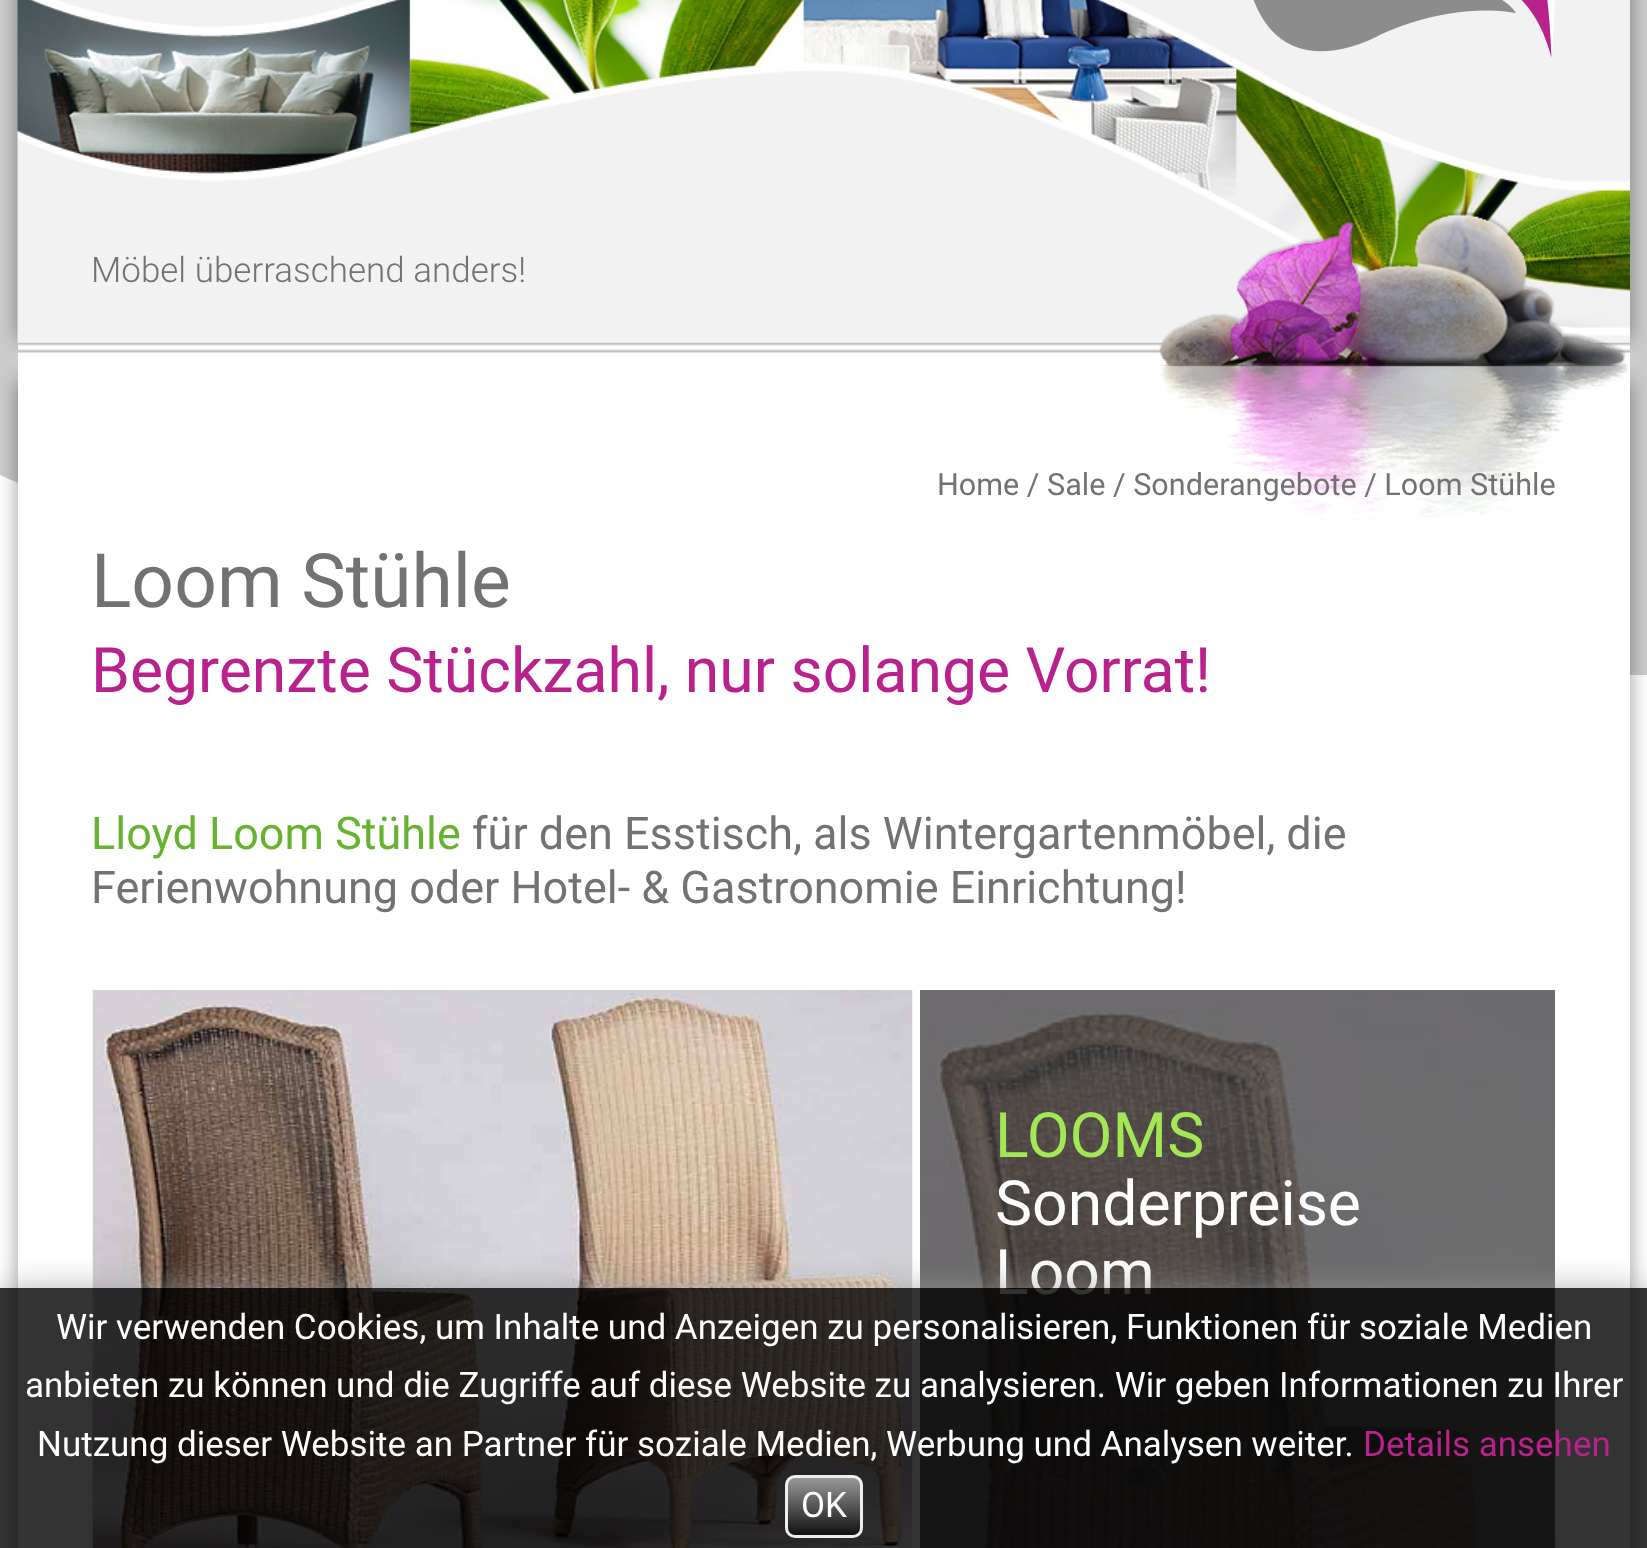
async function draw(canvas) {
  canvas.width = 1647
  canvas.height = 1548
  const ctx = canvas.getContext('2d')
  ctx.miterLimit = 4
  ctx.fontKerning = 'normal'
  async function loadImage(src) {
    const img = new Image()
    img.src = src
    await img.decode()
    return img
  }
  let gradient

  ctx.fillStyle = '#fff'
  ctx.fillRect(0, 0, 1647, 1548)
  ctx.fillStyle = '#ccc'
  ctx.fillRect(0, 0, 1647, 353)
  ctx.fillStyle = '#00000066'
  ctx.filter = 'blur(10px)'
  ctx.beginPath()
  ctx.rect(58, -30, 1572, 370)
  ctx.fill()
  ctx.filter = 'none'
  ctx.filter = 'blur(10px)'
  ctx.beginPath()
  ctx.rect(18, -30, 1572, 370)
  ctx.fill()
  ctx.filter = 'none'
  ctx.fillStyle = '#fff'
  ctx.fillRect(18, 342, 1612, 11)
  ctx.save()
  ctx.beginPath()
  ctx.rect(0, 353, 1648, 322)
  ctx.clip()
  ctx.fillStyle = '#ccc'
  ctx.beginPath()
  ctx.moveTo(1647, 352)
  ctx.lineTo(1647, 676)
  ctx.lineTo(1586, 676)
  ctx.bezierCurveTo(1524, 670, 1416, 647, 1268, 565)
  ctx.bezierCurveTo(1023, 430, 907, 406, 812, 406)
  ctx.bezierCurveTo(716, 406, 536, 435, 334, 498)
  ctx.bezierCurveTo(184, 544, 57, 501, 0, 475)
  ctx.lineTo(0, 352)
  ctx.closePath()
  ctx.fill()
  ctx.restore()
  ctx.fillStyle = '#00000066'
  ctx.filter = 'blur(10px)'
  ctx.beginPath()
  ctx.rect(58, 380, 1572, 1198)
  ctx.fill()
  ctx.filter = 'none'
  ctx.filter = 'blur(10px)'
  ctx.beginPath()
  ctx.rect(18, 380, 1572, 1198)
  ctx.fill()
  ctx.filter = 'none'
  ctx.drawImage(await loadImage('image1.png'), 17, 342, 1613, 11)
  ctx.drawImage(await loadImage('image2.png'), 17, 0, 1613, 343)
  ctx.drawImage(await loadImage('image0.png'), 1253, 0, 302, 57)
  ctx.font = '300 35px Roboto'
  ctx.fillStyle = '#727272'
  ctx.fillText('Möbel überraschend anders!', 91, 282)
  ctx.fillStyle = '#fff'
  ctx.fillRect(18, 353, 1612, 1195)
  ctx.drawImage(await loadImage('image3.png'), 1159, 211, 469, 318)
  ctx.font = '30.6px Roboto'
  ctx.fillStyle = '#727272'
  ctx.fillText('Home / Sale / Sonderangebote / Loom Stühle', 937, 495)
  ctx.font = '75px Roboto'
  ctx.fillText('Loom Stühle', 91, 607)
  ctx.font = '62.5px Roboto'
  ctx.fillStyle = '#b9218d'
  ctx.fillText('Begrenzte Stückzahl, nur solange Vorrat!', 91, 692)
  ctx.font = '45px Roboto'
  ctx.fillStyle = '#65b32f'
  ctx.fillText('Lloyd Loom Stühle', 91, 849)
  ctx.fillStyle = '#727272'
  ctx.fillText('für den Esstisch, als Wintergartenmöbel, die', 472, 849)
  ctx.fillText('Ferienwohnung oder Hotel- & Gastronomie Einrichtung!', 91, 903)
  ctx.drawImage(await loadImage('image4.png'), 92, 990, 821, 558)
  ctx.drawImage(await loadImage('image5.png'), 920, 990, 635, 558)
  ctx.font = '62.5px Roboto'
  ctx.fillStyle = '#a3e755'
  ctx.fillText('LOOMS', 995, 1157)
  ctx.fillStyle = '#fff'
  ctx.fillText('Sonderpreise', 995, 1225)
  ctx.fillText('Loom', 995, 1294)
  ctx.save()
  ctx.beginPath()
  ctx.rect(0, 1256, 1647, 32)
  ctx.clip()
  ctx.fillStyle = '#999'
  ctx.filter = 'blur(19px)'
  ctx.beginPath()
  ctx.rect(0, 1295, 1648, 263)
  ctx.fill()
  ctx.filter = 'none'
  ctx.restore()
  ctx.fillStyle = '#000000cc'
  ctx.fillRect(0, 1288, 1647, 260)
  ctx.font = '35px Roboto'
  ctx.fillStyle = '#fff'
  ctx.fillText('Wir verwenden Cookies, um Inhalte und Anzeigen zu personalisieren, Funktionen für soziale Medien', 56, 1339)
  ctx.fillText('anbieten zu können und die Zugriffe auf diese Website zu analysieren. Wir geben Informationen zu Ihrer', 25, 1397)
  ctx.fillText('Nutzung dieser Website an Partner für soziale Medien, Werbung und Analysen weiter.', 37, 1456)
  ctx.fillStyle = '#b9218d'
  ctx.fillText('Details ansehen', 1363, 1456)
  ctx.save()
  ctx.beginPath()
  ctx.roundRect(785, 1475, 78, 63, 10)
  ctx.clip()
  gradient = ctx.createLinearGradient(824, 1478, 824, 1535)
  gradient.addColorStop(0, '#999')
  gradient.addColorStop(1, '#111')
  ctx.fillStyle = gradient
  ctx.fillRect(785, 1478, 78, 57)
  ctx.restore()
  ctx.beginPath()
  ctx.roundRect(786.5, 1476.5, 75, 60, 8.5)
  ctx.strokeStyle = '#eee'
  ctx.lineWidth = 3
  ctx.stroke()
  ctx.fillStyle = '#fff'
  ctx.fillText('OK', 801, 1517)
}

draw(document.querySelector('canvas'))
